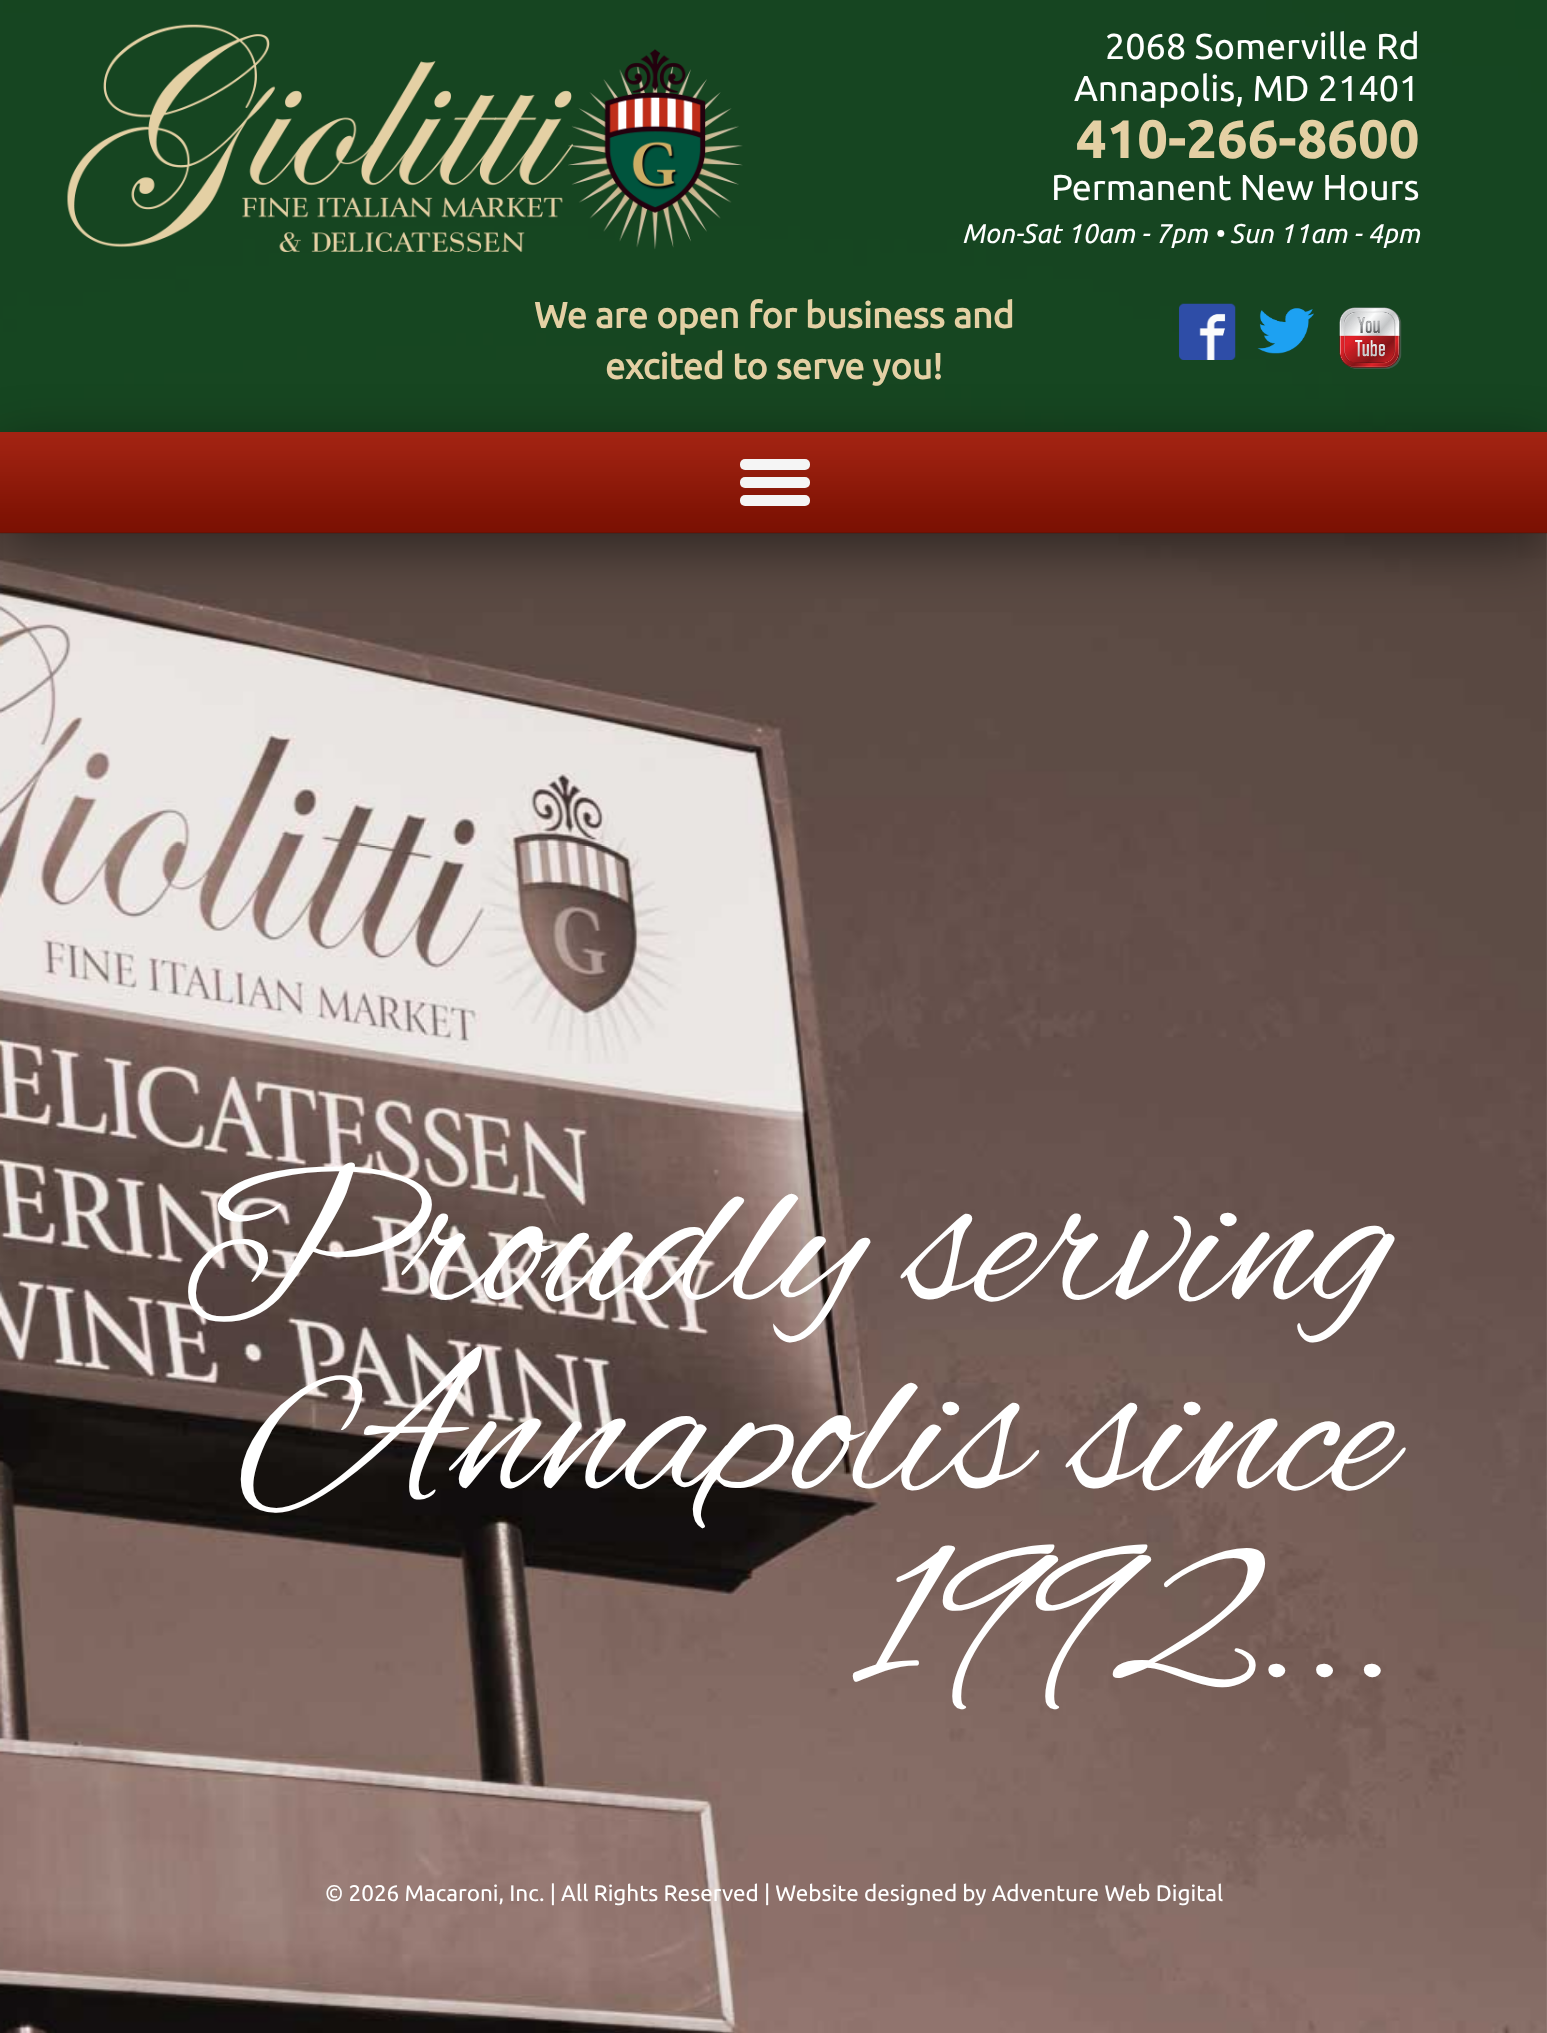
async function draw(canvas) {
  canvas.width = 1547
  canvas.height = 2033
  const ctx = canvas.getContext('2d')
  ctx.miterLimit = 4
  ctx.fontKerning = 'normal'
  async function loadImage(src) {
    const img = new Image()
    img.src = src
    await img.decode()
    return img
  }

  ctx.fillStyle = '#fff'
  ctx.fillRect(0, 0, 1547, 2033)
  ctx.drawImage(await loadImage('image0.png'), 0, 0, 1547, 2033)
  ctx.fillStyle = '#0f461ee6'
  ctx.fillRect(0, 0, 1547, 533)
  ctx.drawImage(await loadImage('image1.png'), 67, 24, 676, 228)
  ctx.font = '36px Ubuntu'
  ctx.fillStyle = '#fff'
  ctx.fillText('2068 Somerville Rd', 1105, 59)
  ctx.fillText('Annapolis, MD 21401', 1074, 101)
  ctx.font = 'bold 54px "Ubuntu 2"'
  ctx.fillStyle = '#e4d0a4'
  ctx.fillText('410-266-8600', 1076, 158)
  ctx.font = '36px Ubuntu'
  ctx.fillStyle = '#fff'
  ctx.fillText('Permanent New Hours', 1051, 200)
  ctx.font = 'italic 27px Ubuntu'
  ctx.fillText('Mon-Sat 10am - 7pm • Sun 11am - 4pm', 962, 243)
  ctx.drawImage(await loadImage('image2.png'), 1179, 303, 57, 57)
  ctx.drawImage(await loadImage('image3.png'), 1257, 308, 57, 46)
  ctx.drawImage(await loadImage('image4.png'), 1339, 307, 63, 62)
  ctx.font = 'bold 36px Ubuntu'
  ctx.fillStyle = '#e4d0a4'
  ctx.fillText('We are open for business and', 534, 328)
  ctx.fillText('excited to serve you!', 605, 379)
  ctx.fillStyle = '#00000080'
  ctx.filter = 'blur(28px)'
  ctx.beginPath()
  ctx.rect(0, 448, 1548, 101)
  ctx.fill()
  ctx.filter = 'none'
  ctx.drawImage(await loadImage('image5.png'), 0, 432, 1547, 102)
  ctx.fillStyle = '#f5f5f5'
  ctx.beginPath()
  ctx.roundRect(740, 459, 70, 11, 5)
  ctx.fill()
  ctx.beginPath()
  ctx.roundRect(740, 477, 70, 11, 5)
  ctx.fill()
  ctx.beginPath()
  ctx.roundRect(740, 495, 70, 11, 5)
  ctx.fill()
  ctx.font = '211.5px Alex Brush'
  ctx.fillStyle = '#fff'
  ctx.fillText('Proudly serving', 179, 1299)
  ctx.fillText('Annapolis since', 241, 1488)
  ctx.fillText('1992...', 853, 1677)
  ctx.font = '22.5px Ubuntu'
  ctx.fillText('© 2026 Macaroni, Inc. | All Rights Reserved | Website designed by Adventure Web Digital', 325, 1901)
}

draw(document.querySelector('canvas'))
